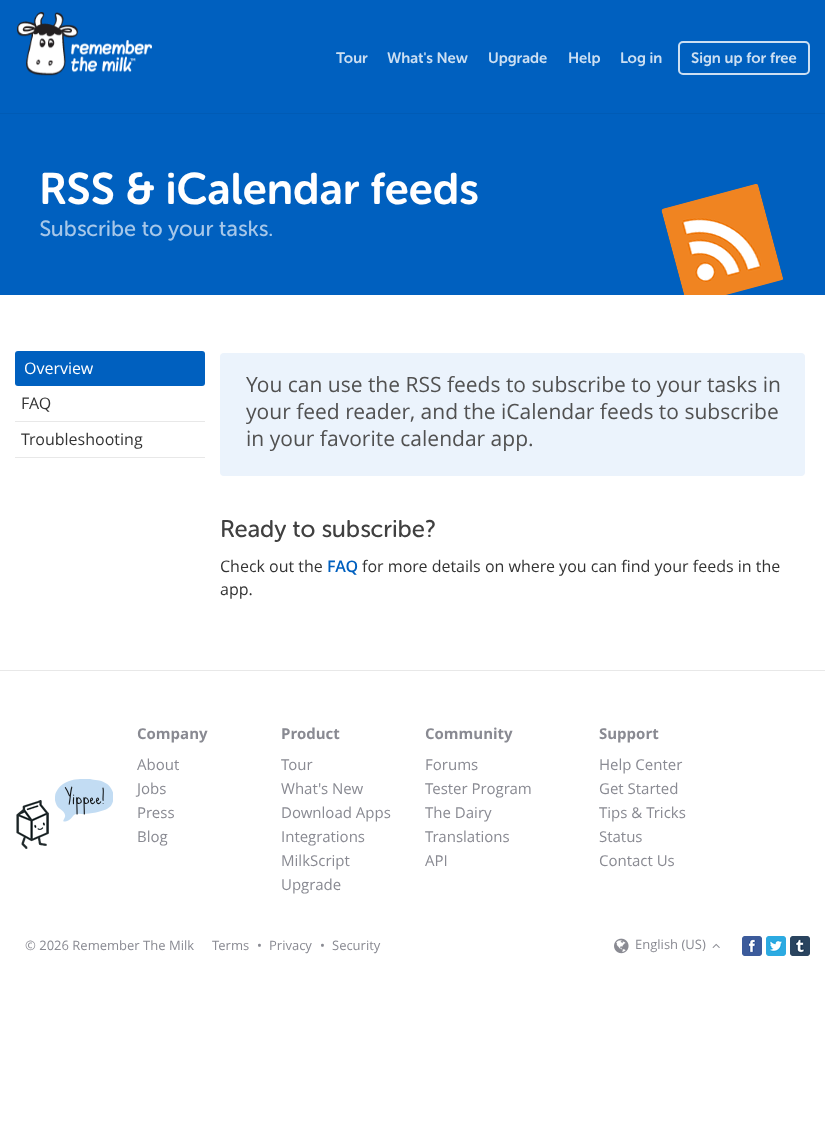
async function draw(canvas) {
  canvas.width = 825
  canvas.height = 1122
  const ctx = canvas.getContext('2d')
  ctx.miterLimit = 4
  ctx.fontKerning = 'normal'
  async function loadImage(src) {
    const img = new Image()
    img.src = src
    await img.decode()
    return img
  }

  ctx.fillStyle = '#fff'
  ctx.fillRect(0, 0, 825, 1122)
  ctx.fillStyle = '#0060bf'
  ctx.fillRect(0, 0, 825, 113)
  ctx.fillStyle = '#005bb5'
  ctx.fillRect(0, 113, 825, 1)
  ctx.drawImage(await loadImage('image0.png'), 17, 12, 135, 64)
  ctx.font = '600 15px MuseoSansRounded'
  ctx.fillStyle = '#ccdff2'
  ctx.fillText('Tour', 336, 63)
  ctx.fillText('What\'s New', 387, 63)
  ctx.fillText('Upgrade', 488, 63)
  ctx.fillText('Help', 568, 63)
  ctx.fillText('Log in', 620, 63)
  ctx.beginPath()
  ctx.roundRect(679, 42, 130, 32, 4)
  ctx.strokeStyle = '#ccdff2'
  ctx.lineWidth = 2
  ctx.stroke()
  ctx.fillText('Sign up for free', 691, 63)
  ctx.fillStyle = '#0060bf'
  ctx.fillRect(0, 114, 825, 181)
  ctx.font = '600 44px MuseoSansRounded'
  ctx.fillStyle = '#fff'
  ctx.fillText('RSS & iCalendar feeds', 39, 204)
  ctx.drawImage(await loadImage('image1.png'), 661, 184, 122, 111)
  ctx.font = '22px Museo Sans Rounded'
  ctx.fillStyle = '#a6c7e9'
  ctx.fillText('Subscribe to your tasks.', 39, 236)
  ctx.fillStyle = '#0060bf'
  ctx.beginPath()
  ctx.roundRect(15, 351, 190, 35, 3)
  ctx.fill()
  ctx.font = '16px Open Sans'
  ctx.fillStyle = '#fff'
  ctx.fillText('Overview', 24, 374)
  ctx.fillStyle = '#e8e8e8'
  ctx.fillRect(15, 421, 190, 1)
  ctx.fillStyle = '#333'
  ctx.fillText('FAQ', 21, 409)
  ctx.fillStyle = '#e8e8e8'
  ctx.fillRect(15, 457, 190, 1)
  ctx.fillStyle = '#333'
  ctx.fillText('Troubleshooting', 21, 445)
  ctx.fillStyle = '#ebf3fc'
  ctx.beginPath()
  ctx.roundRect(220, 353, 585, 123, 4)
  ctx.fill()
  ctx.font = '21px Open Sans'
  ctx.fillStyle = '#515151'
  ctx.fillText('You can use the RSS feeds to subscribe to your tasks in', 246, 392)
  ctx.fillText('your feed reader, and the iCalendar feeds to subscribe', 246, 419)
  ctx.fillText('in your favorite calendar app.', 246, 446)
  ctx.font = '24px Museo Sans Rounded'
  ctx.fillStyle = '#404040'
  ctx.fillText('Ready to subscribe?', 220, 537)
  ctx.font = '16px Open Sans'
  ctx.fillStyle = '#333'
  ctx.fillText('Check out the', 220, 572)
  ctx.font = '600 16px Open Sans'
  ctx.fillStyle = '#0060bf'
  ctx.fillText('FAQ', 327, 572)
  ctx.font = '16px Open Sans'
  ctx.fillStyle = '#333'
  ctx.fillText('for more details on where you can find your feeds in the', 362, 572)
  ctx.fillText('app.', 220, 595)
  ctx.fillStyle = '#e8e8e8'
  ctx.fillRect(0, 670, 825, 1)
  ctx.drawImage(await loadImage('image2.png'), 55, 779, 58, 43)
  ctx.drawImage(await loadImage('image3.png'), 16, 800, 33, 49)
  ctx.font = '19px Sue Ellen Francisco'
  ctx.fillStyle = '#131618'
  ctx.fillText('Yippee!', 65, 804)
  ctx.font = 'bold 15px Open Sans'
  ctx.fillStyle = '#898a92'
  ctx.fillText('Company', 137, 739)
  ctx.font = '15px Open Sans'
  ctx.fillText('About', 137, 770)
  ctx.fillText('Jobs', 137, 794)
  ctx.fillText('Press', 137, 818)
  ctx.fillText('Blog', 137, 842)
  ctx.font = 'bold 15px Open Sans'
  ctx.fillText('Product', 281, 739)
  ctx.font = '15px Open Sans'
  ctx.fillText('Tour', 281, 770)
  ctx.fillText('What\'s New', 281, 794)
  ctx.fillText('Download Apps', 281, 818)
  ctx.fillText('Integrations', 281, 842)
  ctx.fillText('MilkScript', 281, 866)
  ctx.fillText('Upgrade', 281, 890)
  ctx.font = 'bold 15px Open Sans'
  ctx.fillText('Community', 425, 739)
  ctx.font = '15px Open Sans'
  ctx.fillText('Forums', 425, 770)
  ctx.fillText('Tester Program', 425, 794)
  ctx.fillText('The Dairy', 425, 818)
  ctx.fillText('Translations', 425, 842)
  ctx.fillText('API', 425, 866)
  ctx.font = 'bold 15px Open Sans'
  ctx.fillText('Support', 599, 739)
  ctx.font = '15px Open Sans'
  ctx.fillText('Help Center', 599, 770)
  ctx.fillText('Get Started', 599, 794)
  ctx.fillText('Tips & Tricks', 599, 818)
  ctx.fillText('Status', 599, 842)
  ctx.fillText('Contact Us', 599, 866)
  ctx.font = '13px Open Sans'
  ctx.fillText('© 2026 Remember The Milk', 25, 950)
  ctx.fillText('Terms', 212, 950)
  ctx.fillText('•', 257, 950)
  ctx.fillText('Privacy', 269, 950)
  ctx.fillText('•', 320, 950)
  ctx.fillText('Security', 332, 950)
  ctx.drawImage(await loadImage('image4.png'), 614, 938, 15, 16)
  ctx.fillText('English (US)', 635, 949)
  ctx.drawImage(await loadImage('image5.png'), 712, 943, 8, 5)
  ctx.drawImage(await loadImage('image6.png'), 742, 936, 20, 20)
  ctx.drawImage(await loadImage('image7.png'), 766, 936, 20, 20)
  ctx.drawImage(await loadImage('image8.png'), 790, 936, 20, 20)
}

draw(document.querySelector('canvas'))
